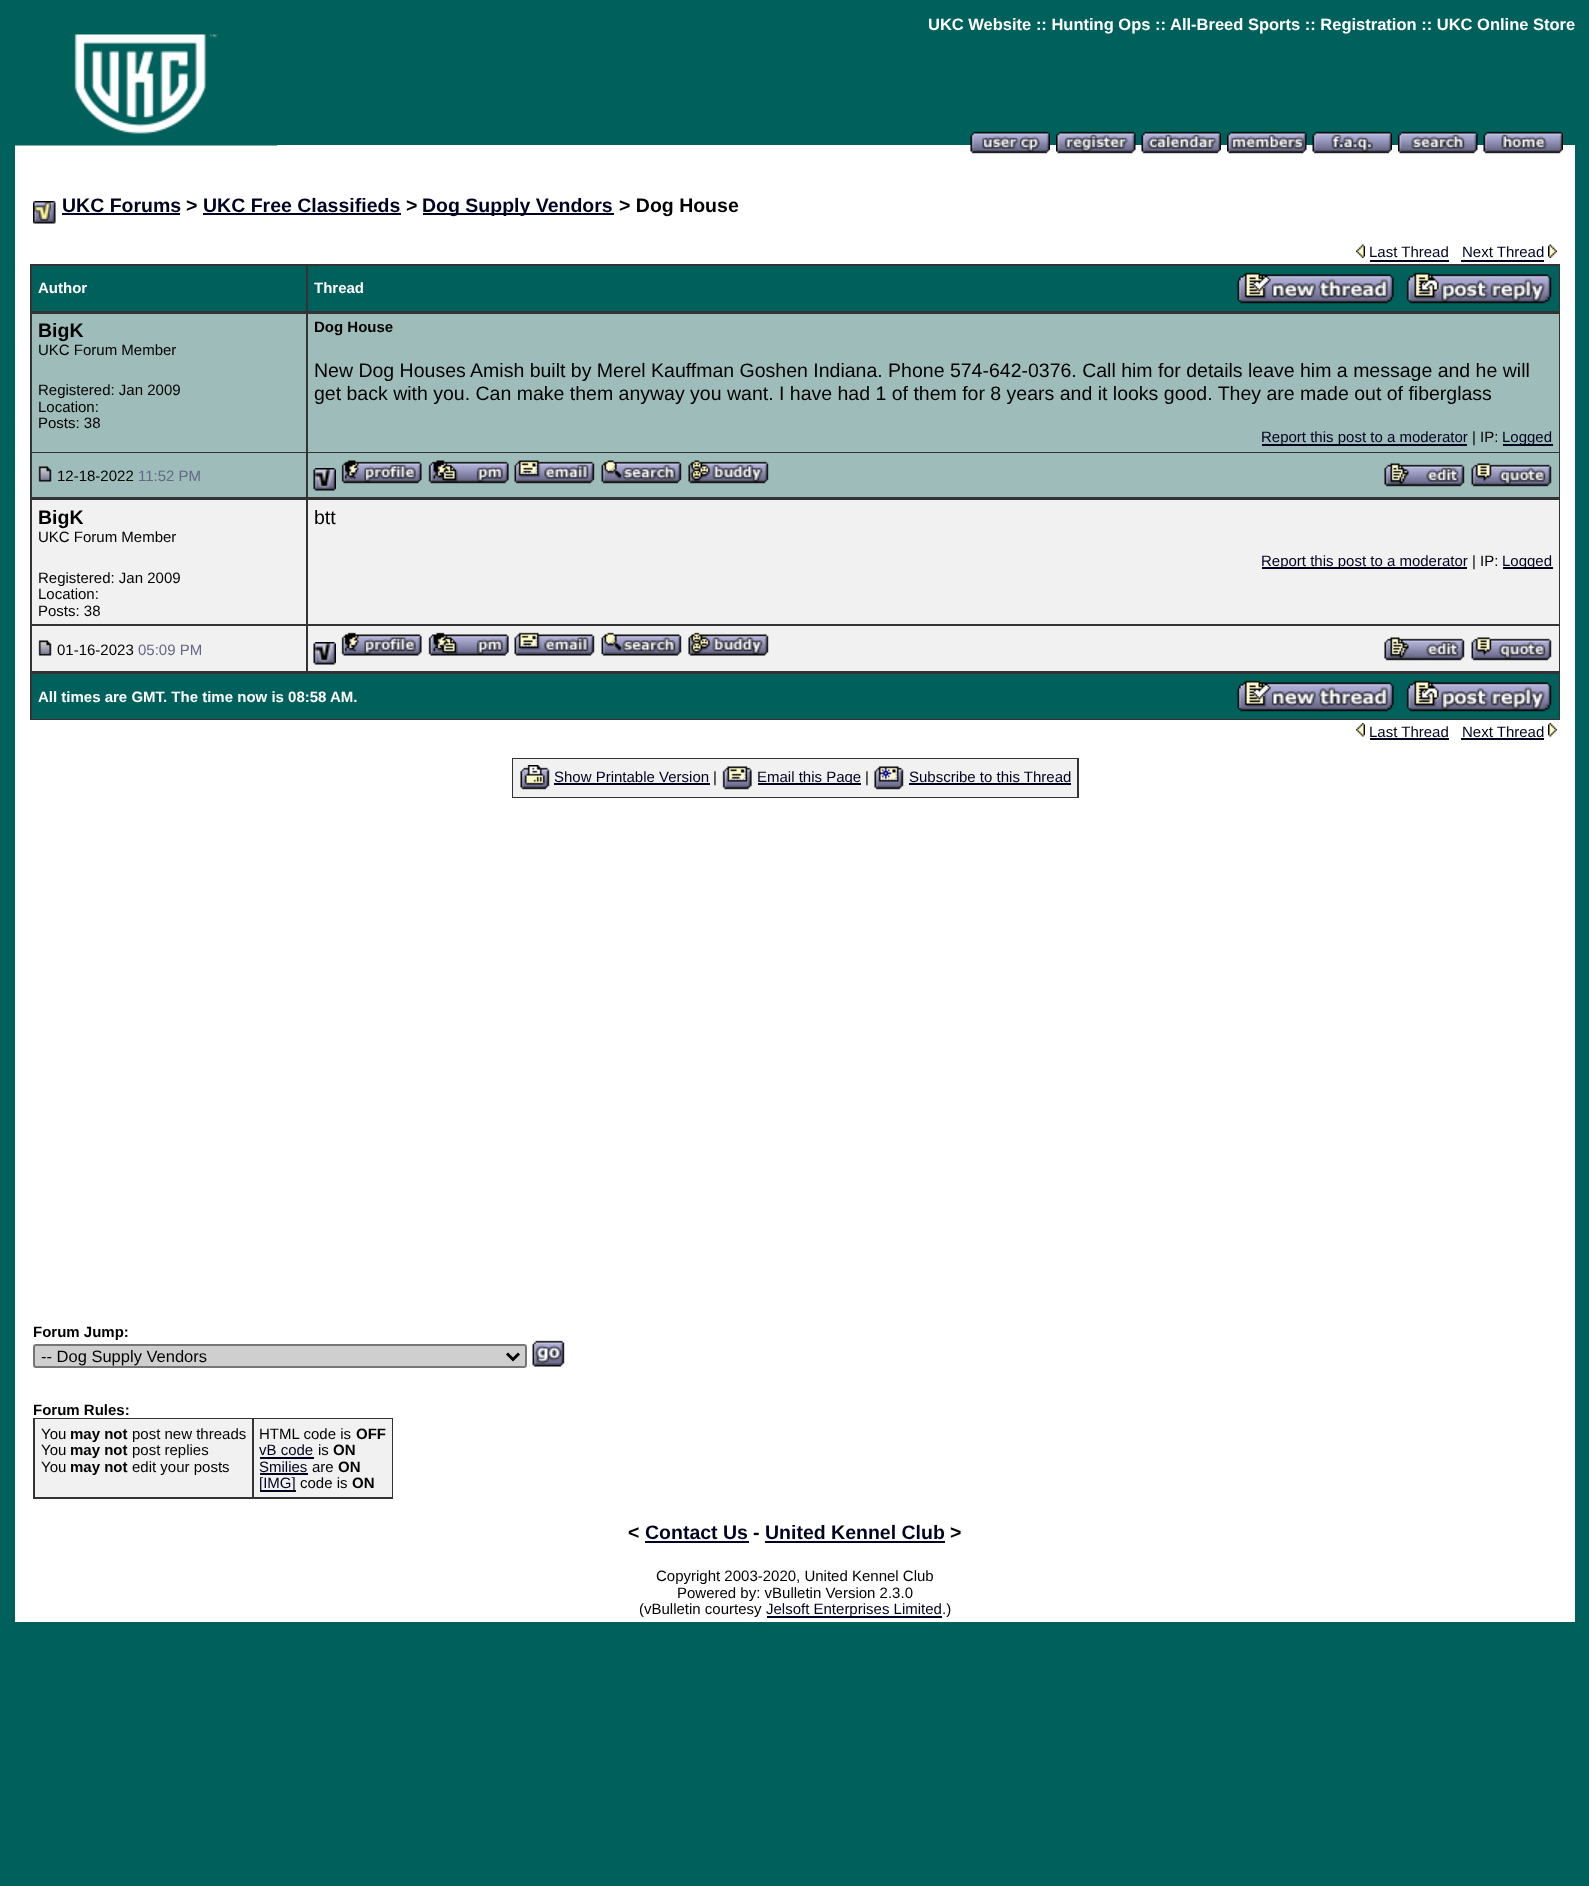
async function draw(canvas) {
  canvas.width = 1589
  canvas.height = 1886
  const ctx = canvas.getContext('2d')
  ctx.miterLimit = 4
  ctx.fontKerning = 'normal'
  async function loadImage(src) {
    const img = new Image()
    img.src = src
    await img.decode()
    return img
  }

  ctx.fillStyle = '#00605b'
  ctx.fillRect(0, 0, 1589, 1886)
  ctx.fillStyle = '#fff'
  ctx.fillRect(15, 145, 1560, 1477)
  ctx.font = 'bold 16.5px Liberation Sans'
  ctx.fillText('UKC Website :: Hunting Ops ::', 928, 30)
  ctx.fillText('All-Breed Sports :: Registration :: UKC Online Store', 1170, 30)
  ctx.drawImage(await loadImage('image0.png'), 15, 34, 263, 112)
  ctx.drawImage(await loadImage('image1.png'), 970, 131, 80, 23)
  ctx.drawImage(await loadImage('image2.png'), 1056, 131, 80, 23)
  ctx.drawImage(await loadImage('image3.png'), 1141, 131, 80, 23)
  ctx.drawImage(await loadImage('image4.png'), 1227, 131, 80, 23)
  ctx.drawImage(await loadImage('image5.png'), 1312, 131, 80, 23)
  ctx.drawImage(await loadImage('image6.png'), 1398, 131, 80, 23)
  ctx.drawImage(await loadImage('image7.png'), 1483, 131, 80, 23)
  ctx.drawImage(await loadImage('image8.png'), 33, 201, 23, 23)
  ctx.font = 'bold 19.5px Liberation Sans'
  ctx.fillStyle = '#000020'
  ctx.fillText('UKC Forums', 62, 212)
  ctx.fillRect(62, 213, 118, 2)
  ctx.fillStyle = '#000'
  ctx.fillText('>', 186, 212)
  ctx.fillStyle = '#000020'
  ctx.fillText('UKC Free Classifieds', 203, 212)
  ctx.fillRect(203, 213, 198, 2)
  ctx.fillStyle = '#000'
  ctx.fillText('>', 406, 212)
  ctx.fillStyle = '#000020'
  ctx.fillRect(423, 213, 191, 2)
  ctx.fillText('Dog Supply Vendors', 422, 212)
  ctx.fillStyle = '#000'
  ctx.fillText('> Dog House', 619, 212)
  ctx.drawImage(await loadImage('image9.png'), 1356, 244, 9, 14)
  ctx.font = '15px Liberation Sans'
  ctx.fillStyle = '#000020'
  ctx.fillText('Last Thread', 1369, 257)
  ctx.fillRect(1370, 260, 79, 2)
  ctx.fillText('Next Thread', 1462, 257)
  ctx.fillRect(1461, 260, 83, 2)
  ctx.drawImage(await loadImage('image10.png'), 1548, 244, 9, 14)
  ctx.fillStyle = '#333'
  ctx.fillRect(30, 264, 1530, 456)
  ctx.fillStyle = '#00605b'
  ctx.fillRect(32, 266, 274, 45)
  ctx.font = 'bold 15px Liberation Sans'
  ctx.fillStyle = '#fff'
  ctx.fillText('Author', 38, 293)
  ctx.fillStyle = '#00605b'
  ctx.fillRect(308, 266, 1251, 45)
  ctx.fillStyle = '#fff'
  ctx.fillText('Thread', 314, 293)
  ctx.drawImage(await loadImage('image11.png'), 1237, 272, 157, 32)
  ctx.drawImage(await loadImage('image12.png'), 1406, 272, 146, 32)
  ctx.fillStyle = '#9ebdba'
  ctx.fillRect(32, 314, 274, 138)
  ctx.font = 'bold 19.5px Liberation Sans'
  ctx.fillStyle = '#000'
  ctx.fillText('BigK', 38, 337)
  ctx.font = '15px Liberation Sans'
  ctx.fillText('UKC Forum Member', 38, 355)
  ctx.fillText('Registered: Jan 2009', 38, 395)
  ctx.fillText('Location:', 38, 412)
  ctx.fillText('Posts: 38', 38, 428)
  ctx.fillStyle = '#9ebdba'
  ctx.fillRect(308, 314, 1251, 138)
  ctx.font = 'bold 15px Liberation Sans'
  ctx.fillStyle = '#000'
  ctx.fillText('Dog House', 314, 332)
  ctx.font = '19.5px Liberation Sans'
  ctx.fillText('New Dog Houses Amish built by Merel Kauffman Goshen Indiana. Phone 574-642-0376. Call him for details leave him a message and he will', 314, 377)
  ctx.fillText('get back with you. Can make them anyway you want. I have had 1 of them for 8 years and it looks good. They are made out of fiberglass', 314, 400)
  ctx.fillStyle = '#000020'
  ctx.fillRect(1262, 444, 205, 2)
  ctx.font = '15px Liberation Sans'
  ctx.fillText('Report this post to a moderator', 1261, 442)
  ctx.fillStyle = '#000'
  ctx.fillText('| IP:', 1472, 442)
  ctx.fillStyle = '#000020'
  ctx.fillRect(1503, 444, 50, 2)
  ctx.fillText('Logged', 1502, 442)
  ctx.fillStyle = '#9ebdba'
  ctx.fillRect(32, 453, 274, 44)
  ctx.drawImage(await loadImage('image13.png'), 38, 466, 14, 16)
  ctx.fillStyle = '#000'
  ctx.fillText('12-18-2022', 57, 481)
  ctx.fillStyle = '#666686'
  ctx.fillText('11:52 PM', 138, 481)
  ctx.fillStyle = '#9ebdba'
  ctx.fillRect(308, 453, 1251, 44)
  ctx.drawImage(await loadImage('image14.png'), 313, 468, 23, 23)
  ctx.drawImage(await loadImage('image15.png'), 341, 460, 81, 24)
  ctx.drawImage(await loadImage('image16.png'), 428, 460, 81, 24)
  ctx.drawImage(await loadImage('image17.png'), 514, 460, 81, 24)
  ctx.drawImage(await loadImage('image18.png'), 601, 460, 81, 24)
  ctx.drawImage(await loadImage('image19.png'), 688, 460, 81, 24)
  ctx.drawImage(await loadImage('image20.png'), 1384, 463, 81, 24)
  ctx.drawImage(await loadImage('image21.png'), 1471, 463, 81, 24)
  ctx.fillStyle = '#f1f1f1'
  ctx.fillRect(32, 500, 274, 124)
  ctx.font = 'bold 19.5px Liberation Sans'
  ctx.fillStyle = '#000'
  ctx.fillText('BigK', 38, 524)
  ctx.font = '15px Liberation Sans'
  ctx.fillText('UKC Forum Member', 38, 542)
  ctx.fillText('Registered: Jan 2009', 38, 583)
  ctx.fillText('Location:', 38, 599)
  ctx.fillText('Posts: 38', 38, 616)
  ctx.fillStyle = '#f1f1f1'
  ctx.fillRect(308, 500, 1251, 124)
  ctx.font = '19.5px Liberation Sans'
  ctx.fillStyle = '#000'
  ctx.fillText('btt', 314, 524)
  ctx.fillStyle = '#000020'
  ctx.fillRect(1262, 567, 205, 2)
  ctx.font = '15px Liberation Sans'
  ctx.fillText('Report this post to a moderator', 1261, 566)
  ctx.fillStyle = '#000'
  ctx.fillText('| IP:', 1472, 566)
  ctx.fillStyle = '#000020'
  ctx.fillRect(1503, 567, 50, 2)
  ctx.fillText('Logged', 1502, 566)
  ctx.fillStyle = '#f1f1f1'
  ctx.fillRect(32, 626, 274, 45)
  ctx.drawImage(await loadImage('image22.png'), 38, 640, 14, 16)
  ctx.fillStyle = '#000'
  ctx.fillText('01-16-2023', 57, 655)
  ctx.fillStyle = '#666686'
  ctx.fillText('05:09 PM', 138, 655)
  ctx.fillStyle = '#f1f1f1'
  ctx.fillRect(308, 626, 1251, 45)
  ctx.drawImage(await loadImage('image23.png'), 313, 642, 23, 23)
  ctx.drawImage(await loadImage('image24.png'), 341, 632, 81, 24)
  ctx.drawImage(await loadImage('image25.png'), 428, 632, 81, 24)
  ctx.drawImage(await loadImage('image26.png'), 514, 632, 81, 24)
  ctx.drawImage(await loadImage('image27.png'), 601, 632, 81, 24)
  ctx.drawImage(await loadImage('image28.png'), 688, 632, 81, 24)
  ctx.drawImage(await loadImage('image29.png'), 1384, 637, 81, 24)
  ctx.drawImage(await loadImage('image30.png'), 1471, 637, 81, 24)
  ctx.fillStyle = '#00605b'
  ctx.fillRect(32, 674, 1527, 45)
  ctx.font = 'bold 15px Liberation Sans'
  ctx.fillStyle = '#fff'
  ctx.fillText('All times are GMT. The time now is 08:58 AM.', 38, 702)
  ctx.drawImage(await loadImage('image11.png'), 1237, 680, 157, 32)
  ctx.drawImage(await loadImage('image12.png'), 1406, 680, 146, 32)
  ctx.drawImage(await loadImage('image31.png'), 1356, 723, 9, 14)
  ctx.font = '15px Liberation Sans'
  ctx.fillStyle = '#000020'
  ctx.fillText('Last Thread', 1369, 737)
  ctx.fillRect(1370, 738, 79, 2)
  ctx.fillText('Next Thread', 1462, 737)
  ctx.fillRect(1461, 738, 83, 2)
  ctx.drawImage(await loadImage('image32.png'), 1548, 723, 9, 14)
  ctx.fillStyle = '#333'
  ctx.fillRect(512, 758, 567, 40)
  ctx.fillStyle = '#f1f1f1'
  ctx.fillRect(513, 759, 564, 38)
  ctx.drawImage(await loadImage('image33.png'), 520, 765, 30, 25)
  ctx.fillStyle = '#000020'
  ctx.fillText('Show Printable Version', 554, 782)
  ctx.fillRect(554, 783, 156, 2)
  ctx.fillStyle = '#000'
  ctx.fillText('|', 713, 782)
  ctx.drawImage(await loadImage('image34.png'), 722, 766, 30, 24)
  ctx.fillStyle = '#000020'
  ctx.fillRect(758, 783, 103, 2)
  ctx.fillText('Email this Page', 757, 782)
  ctx.fillStyle = '#000'
  ctx.fillText('|', 865, 782)
  ctx.drawImage(await loadImage('image35.png'), 874, 766, 30, 24)
  ctx.fillStyle = '#000020'
  ctx.fillText('Subscribe to this Thread', 909, 782)
  ctx.fillRect(909, 783, 162, 2)
  ctx.font = 'bold 15px Liberation Sans'
  ctx.fillStyle = '#000'
  ctx.fillText('Forum Jump:', 33, 1337)
  ctx.fillStyle = '#cfcfcf'
  ctx.beginPath()
  ctx.roundRect(34, 1345, 492, 22, 2)
  ctx.fill()
  ctx.strokeStyle = '#767676'
  ctx.lineWidth = 2
  ctx.stroke()
  ctx.beginPath()
  ctx.moveTo(507, 1353.5)
  ctx.lineTo(513, 1359.5)
  ctx.lineTo(519, 1353.5)
  ctx.strokeStyle = '#000'
  ctx.lineWidth = 3
  ctx.stroke()
  ctx.font = '16.5px Liberation Sans'
  ctx.fillStyle = '#000'
  ctx.fillText('-- Dog Supply Vendors', 41, 1362)
  ctx.drawImage(await loadImage('image36.png'), 532, 1340, 33, 27)
  ctx.font = 'bold 15px Liberation Sans'
  ctx.fillText('Forum Rules:', 33, 1415)
  ctx.fillStyle = '#333'
  ctx.fillRect(33, 1418, 360, 81)
  ctx.fillStyle = '#f1f1f1'
  ctx.fillRect(35, 1419, 217, 78)
  ctx.font = '15px Liberation Sans'
  ctx.fillStyle = '#000'
  ctx.fillText('You', 41, 1439)
  ctx.font = 'bold 15px Liberation Sans'
  ctx.fillText('may not', 70, 1439)
  ctx.font = '15px Liberation Sans'
  ctx.fillText('post new threads', 132, 1439)
  ctx.fillText('You', 41, 1455)
  ctx.font = 'bold 15px Liberation Sans'
  ctx.fillText('may not', 70, 1455)
  ctx.font = '15px Liberation Sans'
  ctx.fillText('post replies', 132, 1455)
  ctx.fillText('You', 41, 1472)
  ctx.font = 'bold 15px Liberation Sans'
  ctx.fillText('may not', 70, 1472)
  ctx.font = '15px Liberation Sans'
  ctx.fillText('edit your posts', 132, 1472)
  ctx.fillStyle = '#f1f1f1'
  ctx.fillRect(254, 1419, 138, 78)
  ctx.fillStyle = '#000'
  ctx.fillText('HTML code is', 259, 1439)
  ctx.font = 'bold 15px Liberation Sans'
  ctx.fillText('OFF', 356, 1439)
  ctx.font = '15px Liberation Sans'
  ctx.fillStyle = '#000020'
  ctx.fillText('vB code', 259, 1455)
  ctx.fillRect(260, 1457, 54, 2)
  ctx.fillStyle = '#000'
  ctx.fillText('is', 318, 1455)
  ctx.font = 'bold 15px Liberation Sans'
  ctx.fillText('ON', 333, 1455)
  ctx.font = '15px Liberation Sans'
  ctx.fillStyle = '#000020'
  ctx.fillText('Smilies', 259, 1472)
  ctx.fillRect(260, 1473, 48, 2)
  ctx.fillStyle = '#000'
  ctx.fillText('are', 312, 1472)
  ctx.font = 'bold 15px Liberation Sans'
  ctx.fillText('ON', 338, 1472)
  ctx.fillStyle = '#000020'
  ctx.fillRect(260, 1490, 36, 2)
  ctx.font = '15px Liberation Sans'
  ctx.fillText('[IMG]', 259, 1488)
  ctx.fillStyle = '#000'
  ctx.fillText('code is', 300, 1488)
  ctx.font = 'bold 15px Liberation Sans'
  ctx.fillText('ON', 352, 1488)
  ctx.font = 'bold 19.5px Liberation Sans'
  ctx.fillText('<', 628, 1539)
  ctx.fillStyle = '#000020'
  ctx.fillText('Contact Us', 645, 1539)
  ctx.fillRect(645, 1541, 104, 2)
  ctx.fillStyle = '#000'
  ctx.fillText('-', 753, 1539)
  ctx.fillStyle = '#000020'
  ctx.fillText('United Kennel Club', 765, 1539)
  ctx.fillRect(765, 1541, 180, 2)
  ctx.fillStyle = '#000'
  ctx.fillText('>', 950, 1539)
  ctx.font = '15px Liberation Sans'
  ctx.fillText('Copyright 2003-2020, United Kennel Club', 656, 1581)
  ctx.fillText('Powered by: vBulletin Version 2.3.0', 677, 1598)
  ctx.fillText('(vBulletin courtesy', 639, 1614)
  ctx.fillStyle = '#000020'
  ctx.fillRect(767, 1616, 175, 2)
  ctx.fillText('Jelsoft Enterprises Limited', 766, 1614)
  ctx.fillStyle = '#000'
  ctx.fillText('.)', 942, 1614)
}

draw(document.querySelector('canvas'))
